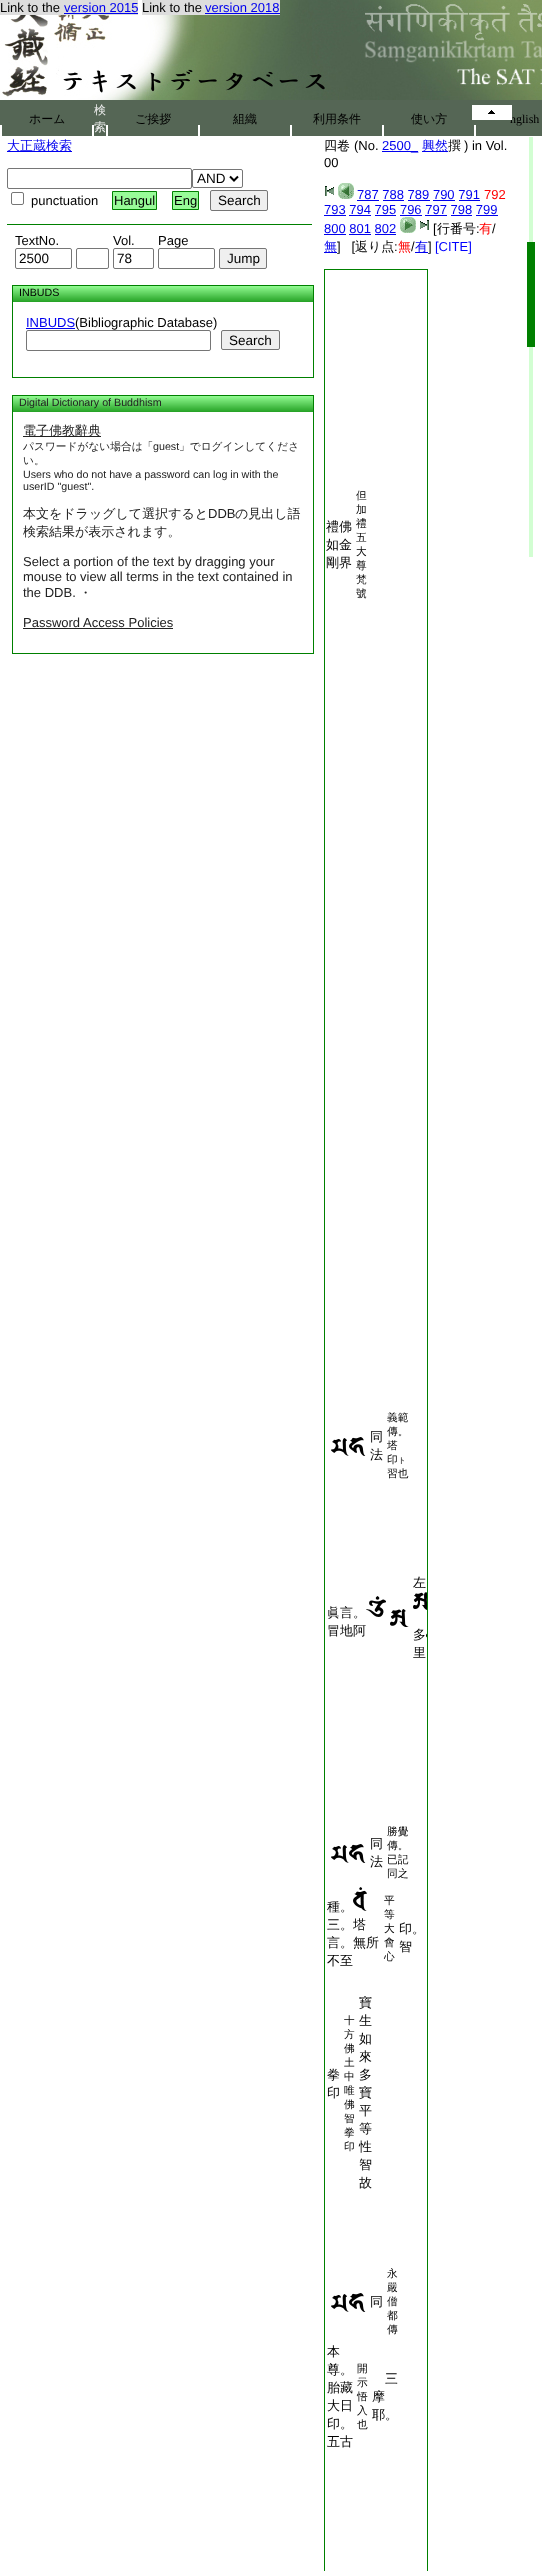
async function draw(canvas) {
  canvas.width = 542
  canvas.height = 2571
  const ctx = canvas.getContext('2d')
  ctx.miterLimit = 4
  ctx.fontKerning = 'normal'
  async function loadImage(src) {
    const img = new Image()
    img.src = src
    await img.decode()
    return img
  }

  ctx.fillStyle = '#fff'
  ctx.fillRect(0, 0, 542, 2571)
  ctx.drawImage(await loadImage('image0.png'), 0, 0, 542, 100)
  ctx.fillStyle = '#ddd'
  ctx.fillRect(0, 0, 138, 15)
  ctx.font = '13px Liberation Sans'
  ctx.fillStyle = '#000'
  ctx.fillText('Link to the', 0, 12)
  ctx.fillStyle = '#00e'
  ctx.fillText('version 2015', 64, 12)
  ctx.fillRect(64, 13, 74, 1)
  ctx.fillStyle = '#ddd'
  ctx.fillRect(142, 0, 138, 15)
  ctx.fillStyle = '#000'
  ctx.fillText('Link to the', 142, 12)
  ctx.fillStyle = '#00e'
  ctx.fillText('version 2018', 205, 12)
  ctx.fillRect(205, 13, 75, 1)
  ctx.fillStyle = '#565'
  ctx.fillRect(0, 100, 542, 25)
  ctx.fillRect(2, 125, 90, 11)
  ctx.font = '500 12px WenQuanYi Zen Hei'
  ctx.fillStyle = '#000'
  ctx.fillText('ホーム', 29, 123)
  ctx.fillStyle = '#565'
  ctx.fillRect(94, 125, 12, 11)
  ctx.fillStyle = '#eee'
  ctx.fillText('検', 94, 114)
  ctx.fillText('索', 94, 131)
  ctx.fillStyle = '#565'
  ctx.fillRect(108, 125, 90, 11)
  ctx.fillStyle = '#000'
  ctx.fillText('ご挨拶', 135, 123)
  ctx.fillStyle = '#565'
  ctx.fillRect(200, 125, 90, 11)
  ctx.fillStyle = '#000'
  ctx.fillText('組織', 233, 123)
  ctx.fillStyle = '#565'
  ctx.fillRect(292, 125, 90, 11)
  ctx.fillStyle = '#000'
  ctx.fillText('利用条件', 313, 123)
  ctx.fillStyle = '#565'
  ctx.fillRect(384, 125, 90, 11)
  ctx.fillStyle = '#000'
  ctx.fillText('使い方', 411, 123)
  ctx.fillStyle = '#565'
  ctx.fillRect(476, 125, 66, 11)
  ctx.font = '12px Liberation Serif'
  ctx.fillStyle = '#000'
  ctx.fillText('nglish', 510, 123)
  ctx.fillStyle = '#fff'
  ctx.fillRect(472, 105, 40, 15)
  ctx.drawImage(await loadImage('image1.png'), 488, 110, 7, 4)
  ctx.fillStyle = '#00e'
  ctx.fillRect(7, 151, 65, 1)
  ctx.font = '500 13px WenQuanYi Zen Hei'
  ctx.fillText('大正蔵検索', 7, 150)
  ctx.beginPath()
  ctx.roundRect(7.5, 168.5, 184, 20, 1.5)
  ctx.strokeStyle = '#767676'
  ctx.stroke()
  ctx.beginPath()
  ctx.roundRect(192.5, 169.5, 50, 18, 1.5)
  ctx.stroke()
  ctx.beginPath()
  ctx.moveTo(230, 176.5)
  ctx.lineTo(234, 180.5)
  ctx.lineTo(238, 176.5)
  ctx.strokeStyle = '#000'
  ctx.lineWidth = 2
  ctx.stroke()
  ctx.font = '13.5px Liberation Sans'
  ctx.fillStyle = '#000'
  ctx.fillText('AND', 197, 183)
  ctx.beginPath()
  ctx.roundRect(11.5, 192.5, 12, 12, 1.5)
  ctx.strokeStyle = '#767676'
  ctx.lineWidth = 1
  ctx.stroke()
  ctx.font = '13px Liberation Sans'
  ctx.fillText('punctuation', 31, 205)
  ctx.fillStyle = '#98fb98'
  ctx.beginPath()
  ctx.rect(112.5, 191.5, 44, 18)
  ctx.fill()
  ctx.strokeStyle = '#008000'
  ctx.stroke()
  ctx.fillStyle = '#000'
  ctx.fillText('Hangul', 114, 205)
  ctx.fillStyle = '#98fb98'
  ctx.beginPath()
  ctx.rect(172.5, 191.5, 26, 18)
  ctx.fill()
  ctx.stroke()
  ctx.fillStyle = '#000'
  ctx.fillText('Eng', 174, 205)
  ctx.fillStyle = '#efefef'
  ctx.beginPath()
  ctx.roundRect(210.5, 190.5, 57, 20, 1.5)
  ctx.fill()
  ctx.strokeStyle = '#767676'
  ctx.stroke()
  ctx.font = '13.5px Liberation Sans'
  ctx.fillStyle = '#000'
  ctx.fillText('Search', 218, 205)
  ctx.fillStyle = '#008000'
  ctx.fillRect(7, 224, 305, 1)
  ctx.font = '13px Liberation Sans'
  ctx.fillStyle = '#000'
  ctx.fillText('TextNo.', 15, 245)
  ctx.beginPath()
  ctx.roundRect(15.5, 248.5, 56, 20, 1.5)
  ctx.stroke()
  ctx.font = '13.5px Liberation Sans'
  ctx.fillText('2500', 19, 263)
  ctx.beginPath()
  ctx.roundRect(76.5, 248.5, 32, 20, 1.5)
  ctx.stroke()
  ctx.font = '13px Liberation Sans'
  ctx.fillText('Vol.', 113, 245)
  ctx.beginPath()
  ctx.roundRect(113.5, 248.5, 40, 20, 1.5)
  ctx.stroke()
  ctx.font = '13.5px Liberation Sans'
  ctx.fillText('78', 117, 263)
  ctx.font = '13px Liberation Sans'
  ctx.fillText('Page', 158, 245)
  ctx.beginPath()
  ctx.roundRect(158.5, 248.5, 56, 20, 1.5)
  ctx.stroke()
  ctx.fillStyle = '#efefef'
  ctx.beginPath()
  ctx.roundRect(219.5, 248.5, 47, 20, 1.5)
  ctx.fill()
  ctx.stroke()
  ctx.font = '13.5px Liberation Sans'
  ctx.fillStyle = '#000'
  ctx.fillText('Jump', 227, 263)
  ctx.strokeStyle = '#008000'
  ctx.strokeRect(12.5, 285.5, 301, 92)
  ctx.drawImage(await loadImage('image2.png'), 13, 286, 300, 16)
  ctx.font = '10.7px Liberation Sans'
  ctx.fillText('INBUDS', 19, 296)
  ctx.font = '13px Liberation Sans'
  ctx.fillStyle = '#00e'
  ctx.fillText('INBUDS', 26, 327)
  ctx.fillRect(26, 328, 49, 1)
  ctx.fillStyle = '#000'
  ctx.fillText('(Bibliographic Database)', 75, 327)
  ctx.beginPath()
  ctx.roundRect(26.5, 330.5, 184, 20, 1.5)
  ctx.strokeStyle = '#767676'
  ctx.stroke()
  ctx.fillStyle = '#efefef'
  ctx.beginPath()
  ctx.roundRect(221.5, 330.5, 58, 19, 1.5)
  ctx.fill()
  ctx.stroke()
  ctx.font = '13.5px Liberation Sans'
  ctx.fillStyle = '#000'
  ctx.fillText('Search', 229, 345)
  ctx.strokeStyle = '#008000'
  ctx.strokeRect(12.5, 395.5, 301, 258)
  ctx.drawImage(await loadImage('image2.png'), 13, 396, 300, 16)
  ctx.font = '10.7px Liberation Sans'
  ctx.fillStyle = '#222'
  ctx.fillText('Digital Dictionary of Buddhism', 19, 406)
  ctx.fillRect(23, 436, 78, 1)
  ctx.font = '500 13px WenQuanYi Zen Hei'
  ctx.fillText('電子佛教辭典', 23, 435)
  ctx.font = '500 10.7px WenQuanYi Zen Hei'
  ctx.fillText('パスワードがない場合は「', 23, 450)
  ctx.font = '10.7px Liberation Sans'
  ctx.fillText('guest', 153, 450)
  ctx.font = '500 10.7px WenQuanYi Zen Hei'
  ctx.fillText('」でログインしてくださ', 179, 450)
  ctx.fillText('い。', 23, 464)
  ctx.font = '10.7px Liberation Sans'
  ctx.fillText('Users who do not have a password can log in with the', 23, 478)
  ctx.fillText('userID "guest".', 23, 490)
  ctx.font = '500 13px WenQuanYi Zen Hei'
  ctx.fillText('本文をドラッグして選択すると', 23, 518)
  ctx.font = '13px Liberation Sans'
  ctx.fillText('DDB', 208, 518)
  ctx.font = '500 13px WenQuanYi Zen Hei'
  ctx.fillText('の見出し語', 235, 518)
  ctx.fillText('検索結果が表示されます。', 23, 536)
  ctx.font = '13px Liberation Sans'
  ctx.fillText('Select a portion of the text by dragging your', 23, 566)
  ctx.fillText('mouse to view all terms in the text contained in', 23, 581)
  ctx.fillText('the DDB.', 23, 597)
  ctx.font = '500 13px WenQuanYi Zen Hei'
  ctx.fillText('・', 79, 597)
  ctx.font = '13px Liberation Sans'
  ctx.fillText('Password Access Policies', 23, 627)
  ctx.fillRect(23, 628, 150, 1)
  ctx.font = '500 13px WenQuanYi Zen Hei'
  ctx.fillStyle = '#000'
  ctx.fillText('四卷', 324, 150)
  ctx.font = '13px Liberation Sans'
  ctx.fillText('(No.', 354, 150)
  ctx.fillStyle = '#00e'
  ctx.fillRect(382, 151, 36, 1)
  ctx.fillText('2500_', 382, 150)
  ctx.fillRect(422, 151, 26, 1)
  ctx.font = '500 13px WenQuanYi Zen Hei'
  ctx.fillText('興然', 422, 150)
  ctx.fillStyle = '#000'
  ctx.fillText('撰', 448, 150)
  ctx.font = '13px Liberation Sans'
  ctx.fillText(') in Vol.', 464, 150)
  ctx.fillText('00', 324, 167)
  ctx.drawImage(await loadImage('image3.png'), 325, 186, 9, 10)
  ctx.drawImage(await loadImage('image4.png'), 338, 183, 16, 16)
  ctx.fillStyle = '#00e'
  ctx.fillText('787 788 789 790 791', 357, 199)
  ctx.fillRect(357, 200, 22, 1)
  ctx.fillStyle = '#f00'
  ctx.fillText('792', 484, 199)
  ctx.fillStyle = '#00e'
  ctx.fillRect(383, 200, 21, 1)
  ctx.fillRect(408, 200, 22, 1)
  ctx.fillRect(433, 200, 22, 1)
  ctx.fillRect(459, 200, 21, 1)
  ctx.fillText('793 794 795 796 797 798 799', 324, 214)
  ctx.fillRect(324, 215, 22, 1)
  ctx.fillRect(349, 215, 22, 1)
  ctx.fillRect(375, 215, 21, 1)
  ctx.fillRect(400, 215, 22, 1)
  ctx.fillRect(425, 215, 22, 1)
  ctx.fillRect(451, 215, 21, 1)
  ctx.fillRect(476, 215, 22, 1)
  ctx.fillText('800 801 802', 324, 233)
  ctx.fillRect(324, 234, 22, 1)
  ctx.drawImage(await loadImage('image5.png'), 400, 217, 16, 16)
  ctx.drawImage(await loadImage('image6.png'), 420, 220, 9, 10)
  ctx.fillStyle = '#000'
  ctx.fillText('[', 433, 233)
  ctx.font = '500 13px WenQuanYi Zen Hei'
  ctx.fillText('行番号', 437, 233)
  ctx.font = '13px Liberation Sans'
  ctx.fillText(':', 476, 233)
  ctx.font = '500 13px WenQuanYi Zen Hei'
  ctx.fillStyle = '#f00'
  ctx.fillText('有', 479, 233)
  ctx.font = '13px Liberation Sans'
  ctx.fillStyle = '#000'
  ctx.fillText('/', 492, 233)
  ctx.fillStyle = '#00e'
  ctx.fillRect(349, 234, 22, 1)
  ctx.fillRect(375, 234, 21, 1)
  ctx.fillRect(324, 252, 13, 1)
  ctx.font = '500 13px WenQuanYi Zen Hei'
  ctx.fillText('無', 324, 251)
  ctx.font = '13px Liberation Sans'
  ctx.fillStyle = '#000'
  ctx.fillText(']   [', 337, 251)
  ctx.font = '500 13px WenQuanYi Zen Hei'
  ctx.fillText('返り点', 355, 251)
  ctx.font = '13px Liberation Sans'
  ctx.fillText(':', 394, 251)
  ctx.font = '500 13px WenQuanYi Zen Hei'
  ctx.fillStyle = '#f00'
  ctx.fillText('無', 398, 251)
  ctx.font = '13px Liberation Sans'
  ctx.fillStyle = '#000'
  ctx.fillText('/', 411, 251)
  ctx.fillStyle = '#00e'
  ctx.fillRect(415, 252, 13, 1)
  ctx.font = '500 13px WenQuanYi Zen Hei'
  ctx.fillText('有', 415, 251)
  ctx.font = '13px Liberation Sans'
  ctx.fillStyle = '#000'
  ctx.fillText(']', 428, 251)
  ctx.fillStyle = '#00f'
  ctx.fillText('[CITE]', 435, 251)
  ctx.strokeRect(324.5, 269.5, 103, 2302)
  ctx.font = '500 13px WenQuanYi Zen Hei'
  ctx.fillStyle = '#000'
  ctx.fillText('禮佛', 326, 531)
  ctx.fillText('如金', 326, 549)
  ctx.fillText('剛界', 326, 567)
  ctx.font = '500 10.7px WenQuanYi Zen Hei'
  ctx.fillText('但', 356, 499)
  ctx.fillText('加', 356, 513)
  ctx.fillText('禮', 356, 527)
  ctx.fillText('五', 356, 541)
  ctx.fillText('大', 356, 555)
  ctx.fillText('尊', 356, 569)
  ctx.fillText('梵', 356, 583)
  ctx.fillText('號', 356, 597)
  ctx.drawImage(await loadImage('image7.png'), 331, 1438, 18, 18)
  ctx.drawImage(await loadImage('image8.png'), 349, 1437, 17, 19)
  ctx.font = '500 13px WenQuanYi Zen Hei'
  ctx.fillText('同', 370, 1441)
  ctx.fillText('法', 370, 1459)
  ctx.font = '500 10.7px WenQuanYi Zen Hei'
  ctx.fillText('義範', 387, 1421)
  ctx.fillText('傳。', 387, 1435)
  ctx.fillText('塔', 387, 1449)
  ctx.fillText('印', 387, 1463)
  ctx.font = '500 8px WenQuanYi Zen Hei'
  ctx.fillText('ト', 398, 1463)
  ctx.font = '500 10.7px WenQuanYi Zen Hei'
  ctx.fillText('習也', 387, 1477)
  ctx.font = '500 13px WenQuanYi Zen Hei'
  ctx.fillText('眞言。', 327, 1617)
  ctx.drawImage(await loadImage('image9.png'), 366, 1596, 20, 21)
  ctx.fillText('冒地阿', 327, 1635)
  ctx.drawImage(await loadImage('image10.png'), 390, 1609, 19, 18)
  ctx.fillText('左', 413, 1587)
  ctx.drawImage(await loadImage('image11.png'), 413, 1592, 14, 18)
  ctx.fillText('多', 413, 1639)
  ctx.drawImage(await loadImage('image12.png'), 426, 1633, 1, 5)
  ctx.fillText('里', 413, 1657)
  ctx.drawImage(await loadImage('image7.png'), 331, 1845, 18, 18)
  ctx.drawImage(await loadImage('image8.png'), 349, 1844, 17, 19)
  ctx.fillText('同', 370, 1848)
  ctx.fillText('法', 370, 1866)
  ctx.font = '500 10.7px WenQuanYi Zen Hei'
  ctx.fillText('勝覺', 387, 1835)
  ctx.fillText('傳。', 387, 1849)
  ctx.fillText('已記', 387, 1863)
  ctx.fillText('同之', 387, 1877)
  ctx.font = '500 13px WenQuanYi Zen Hei'
  ctx.fillText('種。', 327, 1911)
  ctx.drawImage(await loadImage('image13.png'), 353, 1887, 14, 24)
  ctx.fillText('三。塔', 327, 1929)
  ctx.fillText('言。無所', 327, 1947)
  ctx.fillText('不至', 327, 1965)
  ctx.font = '500 10.7px WenQuanYi Zen Hei'
  ctx.fillText('平', 384, 1904)
  ctx.fillText('等', 384, 1918)
  ctx.fillText('大', 384, 1932)
  ctx.fillText('會', 384, 1946)
  ctx.fillText('心', 384, 1960)
  ctx.font = '500 13px WenQuanYi Zen Hei'
  ctx.fillText('印。', 399, 1933)
  ctx.fillText('智', 399, 1951)
  ctx.fillText('拳', 327, 2079)
  ctx.fillText('印', 327, 2097)
  ctx.font = '500 10.7px WenQuanYi Zen Hei'
  ctx.fillText('十', 344, 2024)
  ctx.fillText('方', 344, 2038)
  ctx.fillText('佛', 344, 2052)
  ctx.fillText('土', 344, 2066)
  ctx.fillText('中', 344, 2080)
  ctx.fillText('唯', 344, 2094)
  ctx.fillText('佛', 344, 2108)
  ctx.fillText('智', 344, 2122)
  ctx.fillText('拳', 344, 2136)
  ctx.fillText('印', 344, 2150)
  ctx.font = '500 13px WenQuanYi Zen Hei'
  ctx.fillText('寶', 359, 2007)
  ctx.fillText('生', 359, 2025)
  ctx.fillText('如', 359, 2043)
  ctx.fillText('來', 359, 2061)
  ctx.fillText('多', 359, 2079)
  ctx.fillText('寶', 359, 2097)
  ctx.fillText('平', 359, 2115)
  ctx.fillText('等', 359, 2133)
  ctx.fillText('性', 359, 2151)
  ctx.fillText('智', 359, 2169)
  ctx.fillText('故', 359, 2187)
  ctx.drawImage(await loadImage('image7.png'), 331, 2294, 18, 18)
  ctx.drawImage(await loadImage('image8.png'), 349, 2293, 17, 19)
  ctx.fillText('同', 370, 2306)
  ctx.font = '500 10.7px WenQuanYi Zen Hei'
  ctx.fillText('永', 387, 2277)
  ctx.fillText('嚴', 387, 2291)
  ctx.fillText('僧', 387, 2305)
  ctx.fillText('都', 387, 2319)
  ctx.fillText('傳', 387, 2333)
  ctx.font = '500 13px WenQuanYi Zen Hei'
  ctx.fillText('本', 327, 2356)
  ctx.fillText('尊。', 327, 2374)
  ctx.fillText('胎藏', 327, 2392)
  ctx.fillText('大日', 327, 2410)
  ctx.fillText('印。', 327, 2428)
  ctx.fillText('五古', 327, 2446)
  ctx.font = '500 10.7px WenQuanYi Zen Hei'
  ctx.fillText('開', 357, 2372)
  ctx.fillText('示', 357, 2386)
  ctx.fillText('悟', 357, 2400)
  ctx.fillText('入', 357, 2414)
  ctx.fillText('也', 357, 2428)
  ctx.font = '500 13px WenQuanYi Zen Hei'
  ctx.fillText('三', 385, 2383)
  ctx.fillText('摩', 372, 2401)
  ctx.fillText('耶。', 372, 2419)
  ctx.fillStyle = '#d2fed2'
  ctx.fillRect(529, 137, 4, 420)
  ctx.fillStyle = '#008000'
  ctx.fillRect(527, 242, 8, 105)
}

draw(document.querySelector('canvas'))
